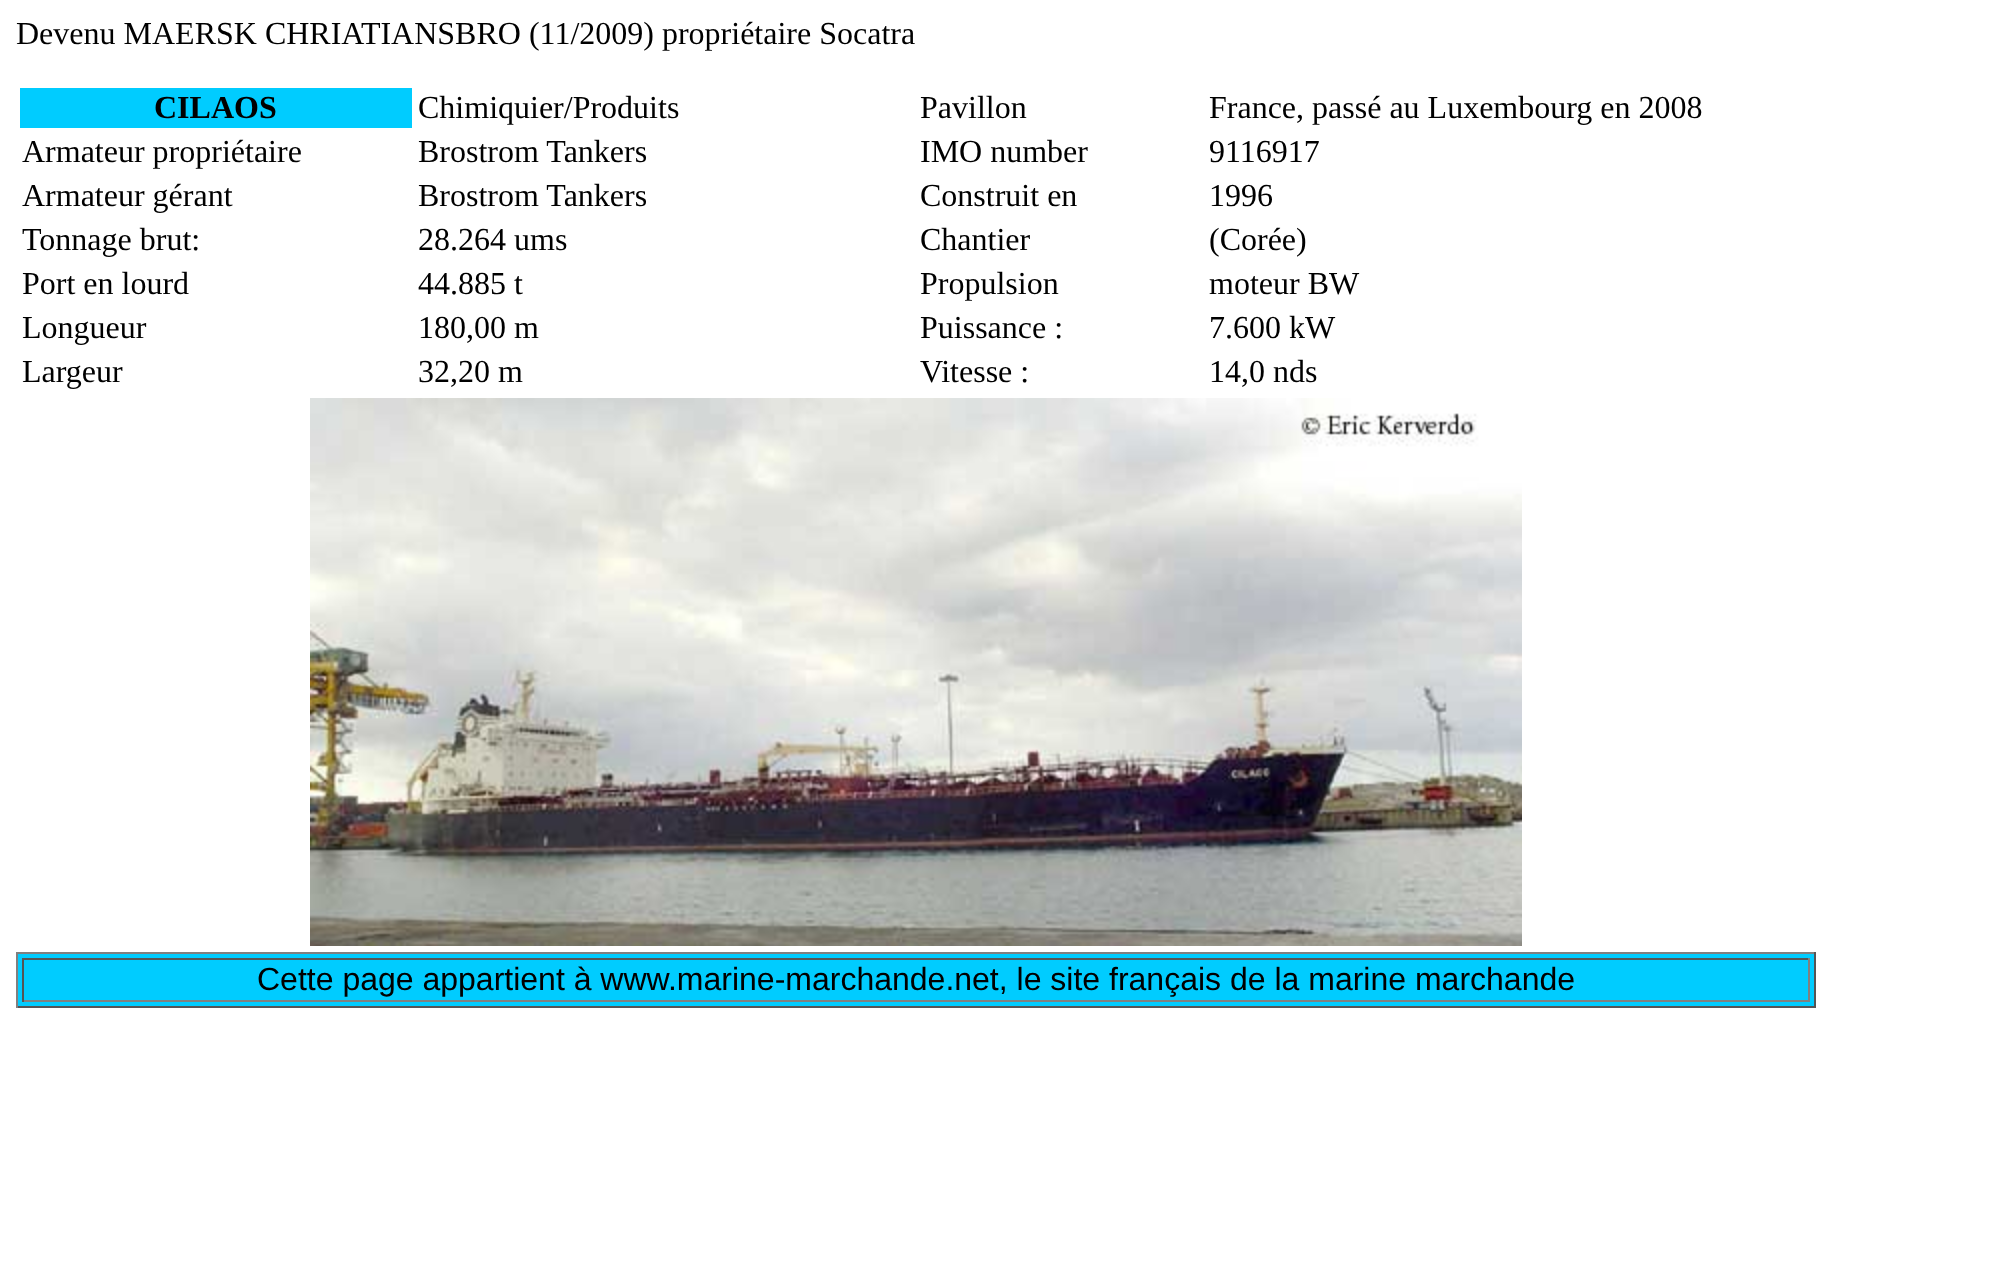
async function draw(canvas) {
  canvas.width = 1993
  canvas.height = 1267
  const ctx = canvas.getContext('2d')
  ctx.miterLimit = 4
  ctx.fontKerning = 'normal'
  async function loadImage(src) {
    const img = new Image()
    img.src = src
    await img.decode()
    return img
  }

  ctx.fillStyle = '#fff'
  ctx.fillRect(0, 0, 1993, 1267)
  ctx.font = '32px Liberation Serif'
  ctx.fillStyle = '#000'
  ctx.fillText('Devenu MAERSK CHRIATIANSBRO (11/2009) propriétaire Socatra', 16, 44)
  ctx.fillStyle = '#0cf'
  ctx.fillRect(20, 88, 392, 40)
  ctx.font = 'bold 32px Liberation Serif'
  ctx.fillStyle = '#000'
  ctx.fillText('CILAOS', 154, 118)
  ctx.font = '32px Liberation Serif'
  ctx.fillText('Chimiquier/Produits', 418, 118)
  ctx.fillText('Pavillon', 920, 118)
  ctx.fillText('France, passé au Luxembourg en 2008', 1209, 118)
  ctx.fillText('Armateur propriétaire', 22, 162)
  ctx.fillText('Brostrom Tankers', 418, 162)
  ctx.fillText('IMO number', 920, 162)
  ctx.fillText('9116917', 1209, 162)
  ctx.fillText('Armateur gérant', 22, 206)
  ctx.fillText('Brostrom Tankers', 418, 206)
  ctx.fillText('Construit en', 920, 206)
  ctx.fillText('1996', 1209, 206)
  ctx.fillText('Tonnage brut:', 22, 250)
  ctx.fillText('28.264 ums', 418, 250)
  ctx.fillText('Chantier', 920, 250)
  ctx.fillText('(Corée)', 1209, 250)
  ctx.fillText('Port en lourd', 22, 294)
  ctx.fillText('44.885 t', 418, 294)
  ctx.fillText('Propulsion', 920, 294)
  ctx.fillText('moteur BW', 1209, 294)
  ctx.fillText('Longueur', 22, 338)
  ctx.fillText('180,00 m', 418, 338)
  ctx.fillText('Puissance :', 920, 338)
  ctx.fillText('7.600 kW', 1209, 338)
  ctx.fillText('Largeur', 22, 382)
  ctx.fillText('32,20 m', 418, 382)
  ctx.fillText('Vitesse :', 920, 382)
  ctx.fillText('14,0 nds', 1209, 382)
  ctx.drawImage(await loadImage('image0.png'), 310, 398, 1212, 548)
  ctx.fillStyle = '#0cf'
  ctx.fillRect(18, 954, 1796, 52)
  ctx.fillStyle = '#808080'
  ctx.fillRect(16, 952, 1800, 2)
  ctx.fillStyle = '#555'
  ctx.fillRect(1814, 952, 2, 56)
  ctx.fillRect(16, 1006, 1800, 2)
  ctx.fillStyle = '#808080'
  ctx.fillRect(16, 952, 2, 56)
  ctx.fillStyle = '#555'
  ctx.fillRect(22, 958, 1788, 2)
  ctx.fillStyle = '#808080'
  ctx.fillRect(1808, 958, 2, 44)
  ctx.fillRect(22, 1000, 1788, 2)
  ctx.fillStyle = '#555'
  ctx.fillRect(22, 958, 2, 44)
  ctx.font = '32px Liberation Sans'
  ctx.fillStyle = '#000'
  ctx.fillText('Cette page appartient à www.marine-marchande.net, le site français de la marine marchande', 257, 990)
}

draw(document.querySelector('canvas'))
